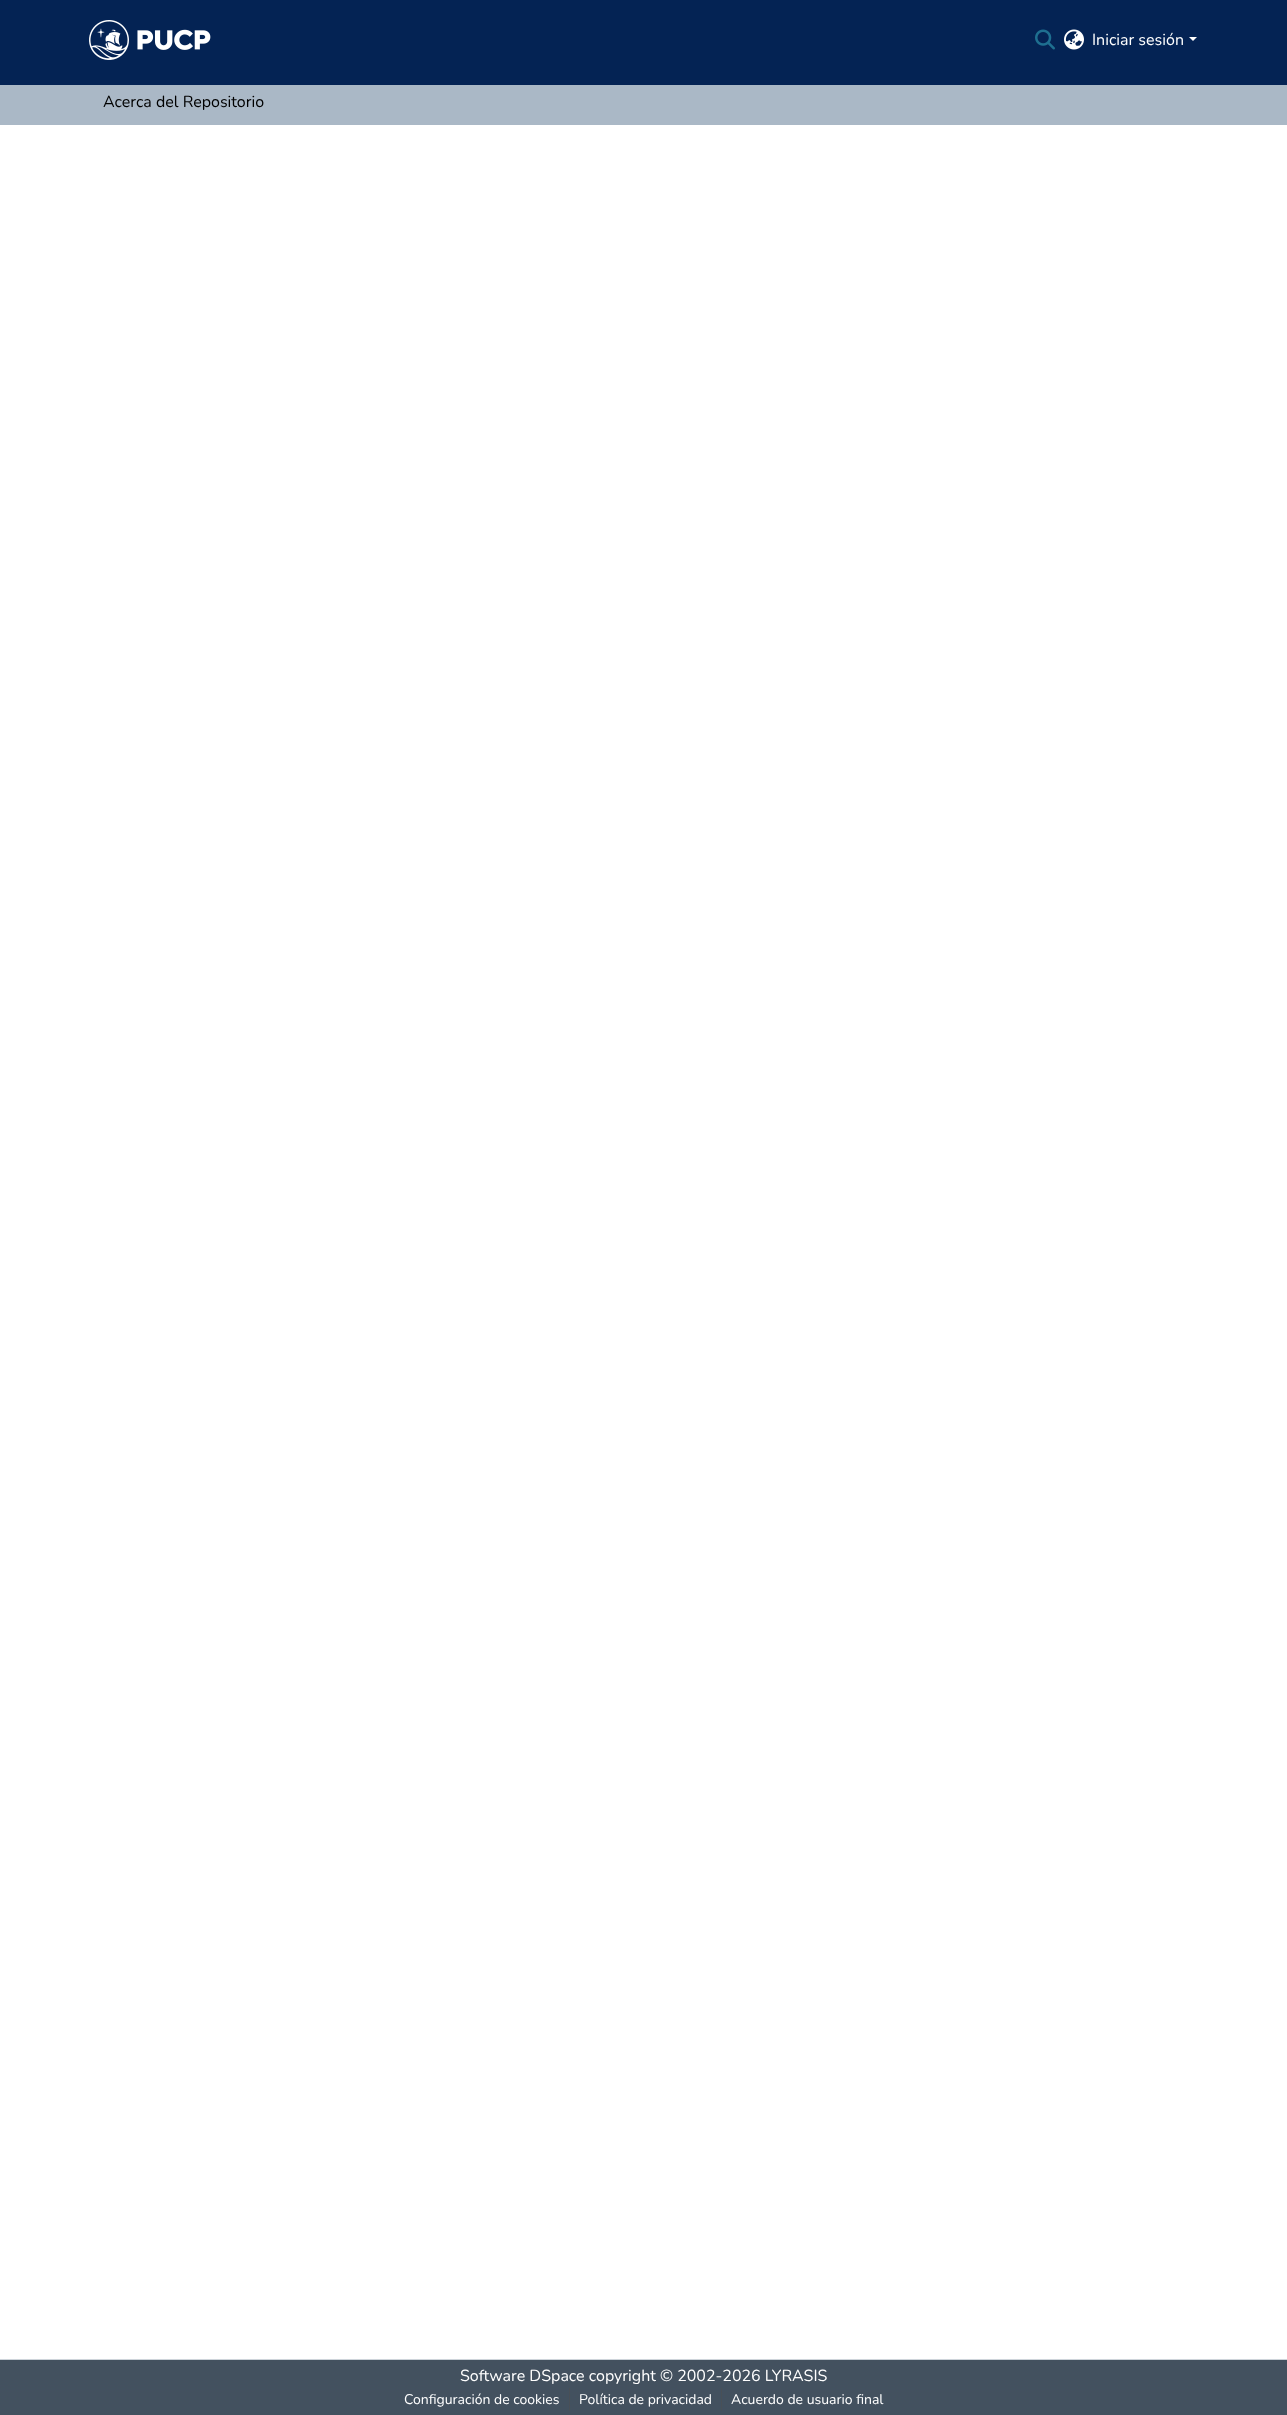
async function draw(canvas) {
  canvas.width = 1287
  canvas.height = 2415
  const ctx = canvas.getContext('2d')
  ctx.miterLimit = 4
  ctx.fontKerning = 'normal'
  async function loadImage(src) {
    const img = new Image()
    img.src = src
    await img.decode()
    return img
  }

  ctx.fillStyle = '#fff'
  ctx.fillRect(0, 0, 1287, 2415)
  ctx.fillStyle = '#042354'
  ctx.fillRect(0, 0, 1287, 85)
  ctx.drawImage(await loadImage('image0.png'), 89, 20, 122, 40)
  ctx.drawImage(await loadImage('image1.png'), 1035, 29, 20, 21)
  ctx.drawImage(await loadImage('image2.png'), 1064, 29, 20, 21)
  ctx.font = '16px Nunito'
  ctx.fillStyle = '#fff'
  ctx.fillText('Iniciar sesión', 1092, 45)
  ctx.beginPath()
  ctx.moveTo(1189, 37)
  ctx.lineTo(1197, 37)
  ctx.lineTo(1193, 41)
  ctx.closePath()
  ctx.fill()
  ctx.fillStyle = '#aab8c6'
  ctx.fillRect(0, 85, 1287, 40)
  ctx.fillStyle = '#000'
  ctx.fillText('Acerca del Repositorio', 103, 107)
  ctx.fillStyle = '#43515f'
  ctx.fillRect(0, 2360, 1287, 55)
  ctx.fillStyle = '#ced4da'
  ctx.fillRect(0, 2359, 1287, 1)
  ctx.fillStyle = '#fff'
  ctx.fillText('Software DSpace copyright © 2002-2026 LYRASIS', 460, 2381)
  ctx.font = '14px Nunito'
  ctx.fillText('Configuración de cookies', 404, 2404)
  ctx.fillStyle = '#495057'
  ctx.fillRect(569, 2388, 1, 23)
  ctx.fillStyle = '#fff'
  ctx.fillText('Política de privacidad', 579, 2404)
  ctx.fillStyle = '#495057'
  ctx.fillRect(721, 2388, 1, 23)
  ctx.fillStyle = '#fff'
  ctx.fillText('Acuerdo de usuario final', 731, 2404)
}

draw(document.querySelector('canvas'))
